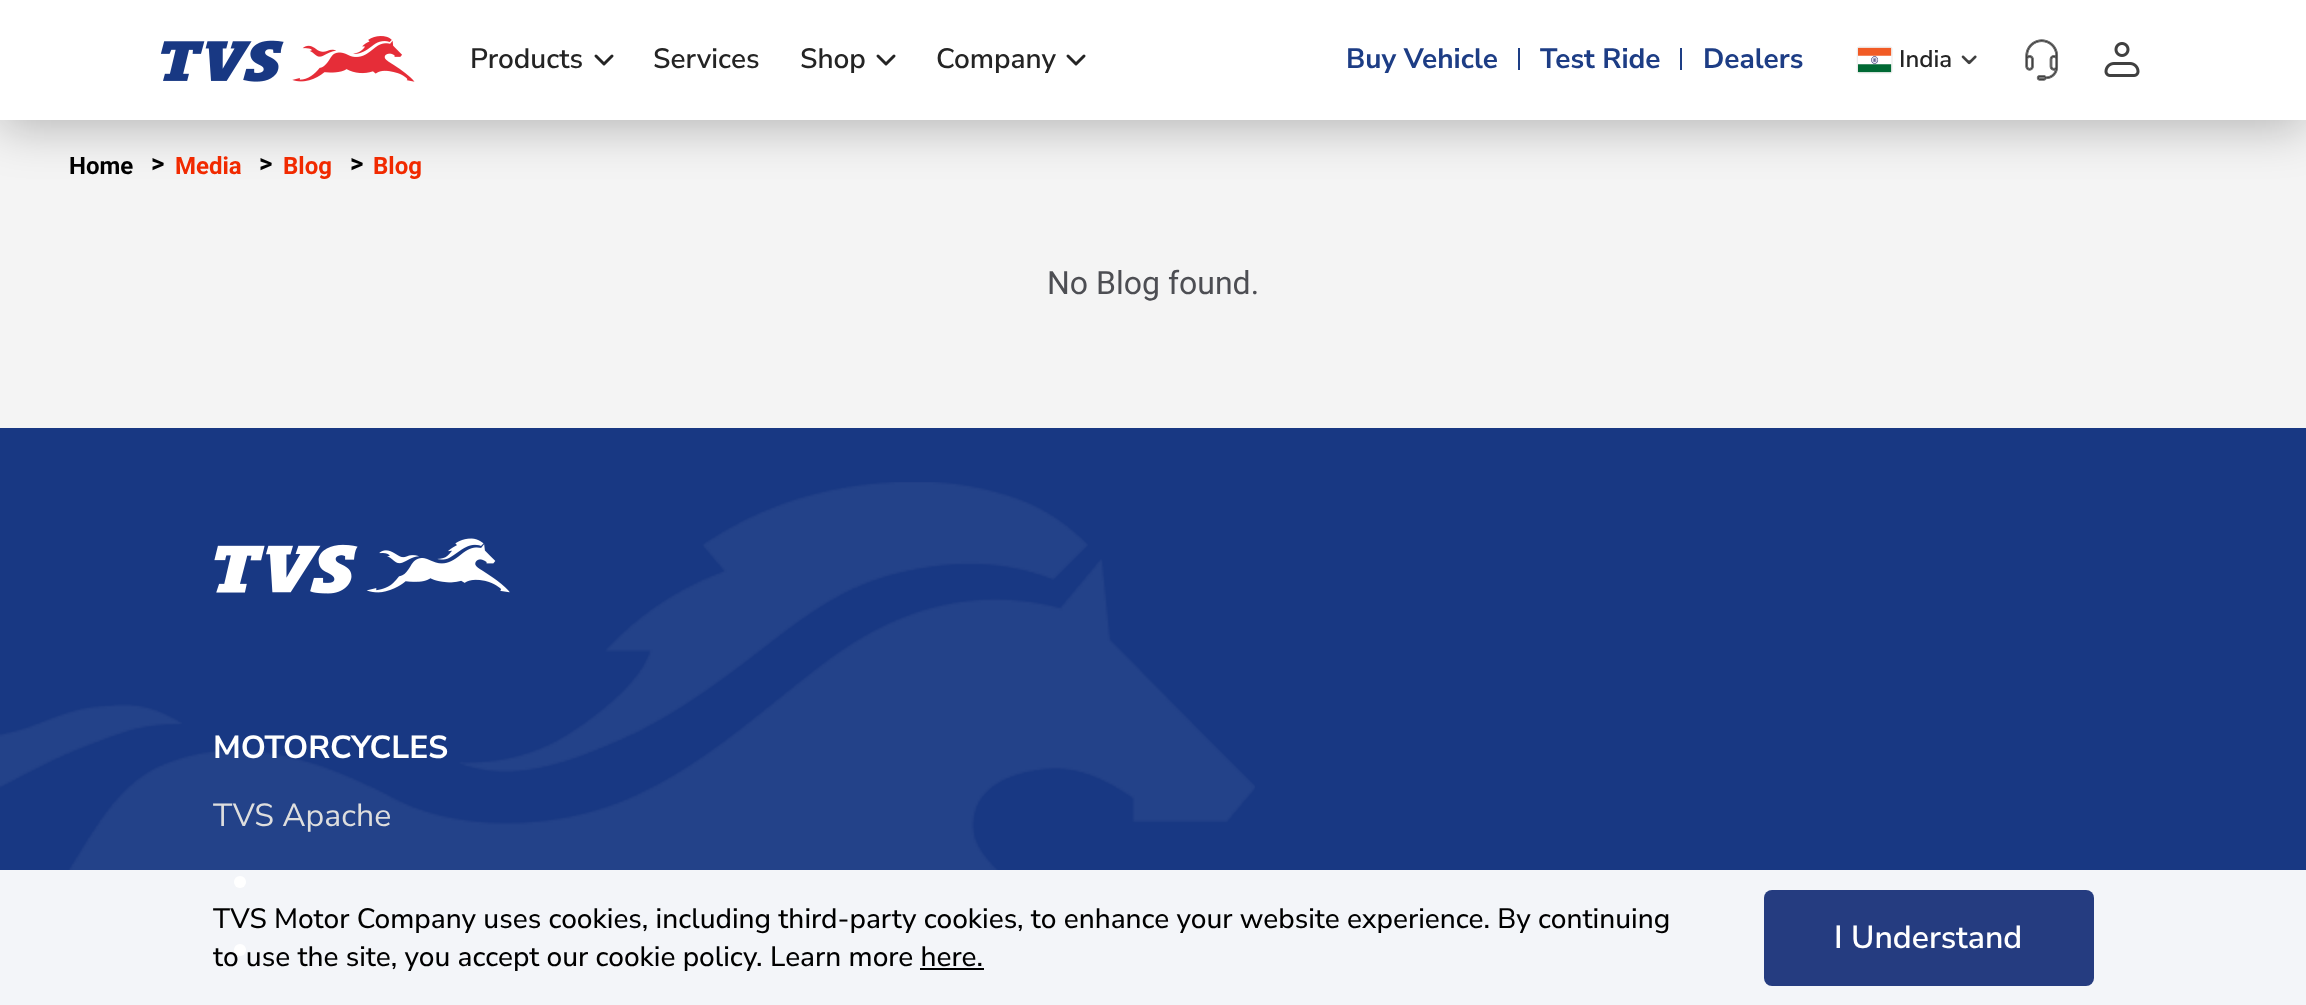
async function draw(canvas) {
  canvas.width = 2306
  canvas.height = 1005
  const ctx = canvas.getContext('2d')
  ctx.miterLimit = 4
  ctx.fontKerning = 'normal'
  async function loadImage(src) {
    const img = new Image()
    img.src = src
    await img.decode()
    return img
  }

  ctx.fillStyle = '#f4f4f4'
  ctx.fillRect(0, 0, 2306, 1005)
  ctx.fillStyle = '#00000040'
  ctx.filter = 'blur(24px)'
  ctx.beginPath()
  ctx.rect(0, 8, 2306, 120)
  ctx.fill()
  ctx.filter = 'none'
  ctx.fillStyle = '#fff'
  ctx.fillRect(0, 0, 2306, 120)
  ctx.drawImage(await loadImage('image0.png'), 160, 36, 255, 46)
  ctx.font = '600 28px Nunito Sans'
  ctx.fillStyle = '#242424'
  ctx.fillText('Products', 470, 68)
  ctx.beginPath()
  ctx.moveTo(596, 56)
  ctx.lineTo(604, 64)
  ctx.lineTo(612, 56)
  ctx.strokeStyle = '#242424'
  ctx.lineWidth = 3
  ctx.lineCap = 'round'
  ctx.lineJoin = 'round'
  ctx.stroke()
  ctx.fillText('Services', 653, 68)
  ctx.fillText('Shop', 800, 68)
  ctx.beginPath()
  ctx.moveTo(878, 56)
  ctx.lineTo(886, 64)
  ctx.lineTo(894, 56)
  ctx.stroke()
  ctx.fillText('Company', 936, 68)
  ctx.beginPath()
  ctx.moveTo(1068, 56)
  ctx.lineTo(1076, 64)
  ctx.lineTo(1084, 56)
  ctx.stroke()
  ctx.font = 'bold 28px Nunito Sans'
  ctx.fillStyle = '#1d3d85'
  ctx.fillText('Buy Vehicle', 1346, 68)
  ctx.fillRect(1518, 48, 2, 22)
  ctx.fillText('Test Ride', 1540, 68)
  ctx.fillRect(1680, 48, 2, 22)
  ctx.fillText('Dealers', 1703, 68)
  ctx.drawImage(await loadImage('image1.png'), 1856, 46, 37, 28)
  ctx.font = '600 24px Nunito Sans'
  ctx.fillStyle = '#242424'
  ctx.fillText('India', 1899, 67)
  ctx.drawImage(await loadImage('image2.png'), 1961, 55, 16, 10)
  ctx.drawImage(await loadImage('image3.png'), 2025, 39, 34, 42)
  ctx.drawImage(await loadImage('image4.png'), 2104, 42, 36, 35)
  ctx.font = 'bold 24px Roboto'
  ctx.fillStyle = '#000'
  ctx.fillText('Home', 69, 174)
  ctx.font = 'bold 26px Roboto'
  ctx.fillText('>', 151, 172)
  ctx.font = 'bold 24px Roboto'
  ctx.fillStyle = '#f12a00'
  ctx.fillText('Media', 175, 174)
  ctx.font = 'bold 26px Roboto'
  ctx.fillStyle = '#000'
  ctx.fillText('>', 259, 172)
  ctx.font = 'bold 24px Roboto'
  ctx.fillStyle = '#f12a00'
  ctx.fillText('Blog', 283, 174)
  ctx.font = 'bold 26px Roboto'
  ctx.fillStyle = '#000'
  ctx.fillText('>', 350, 172)
  ctx.font = 'bold 24px Roboto'
  ctx.fillStyle = '#f12a00'
  ctx.fillText('Blog', 373, 174)
  ctx.font = '32px Roboto'
  ctx.fillStyle = '#4d4e53'
  ctx.fillText('No Blog found.', 1047, 294)
  ctx.fillStyle = '#183883'
  ctx.fillRect(0, 428, 2306, 577)
  ctx.drawImage(await loadImage('image5.png'), 0, 482, 1255, 523)
  ctx.drawImage(await loadImage('image6.png'), 214, 538, 296, 56)
  ctx.font = 'bold 32px Nunito Sans'
  ctx.fillStyle = '#fff'
  ctx.fillText('MOTORCYCLES', 213, 758)
  ctx.font = '32px Nunito Sans'
  ctx.fillStyle = '#dedede'
  ctx.fillText('TVS Apache', 213, 826)
  ctx.fillStyle = '#fff'
  ctx.beginPath()
  ctx.arc(240, 882, 6, 0, 2 * Math.PI)
  ctx.fill()
  ctx.beginPath()
  ctx.arc(240, 950, 6, 0, 2 * Math.PI)
  ctx.fill()
  ctx.fillStyle = '#fffffff2'
  ctx.fillRect(0, 870, 2306, 135)
  ctx.font = '500 28px Nunito Sans'
  ctx.fillStyle = '#000'
  ctx.fillText('TVS Motor Company uses cookies, including third-party cookies, to enhance your website experience. By continuing', 213, 928)
  ctx.fillText('to use the site, you accept our cookie policy. Learn more here.', 213, 966)
  ctx.fillRect(920, 968, 64, 2)
  ctx.fillStyle = '#253c80'
  ctx.beginPath()
  ctx.roundRect(1764, 890, 330, 96, 8)
  ctx.fill()
  ctx.font = '600 32px Nunito Sans'
  ctx.fillStyle = '#fff'
  ctx.fillText('I Understand', 1834, 948)
}

draw(document.querySelector('canvas'))
